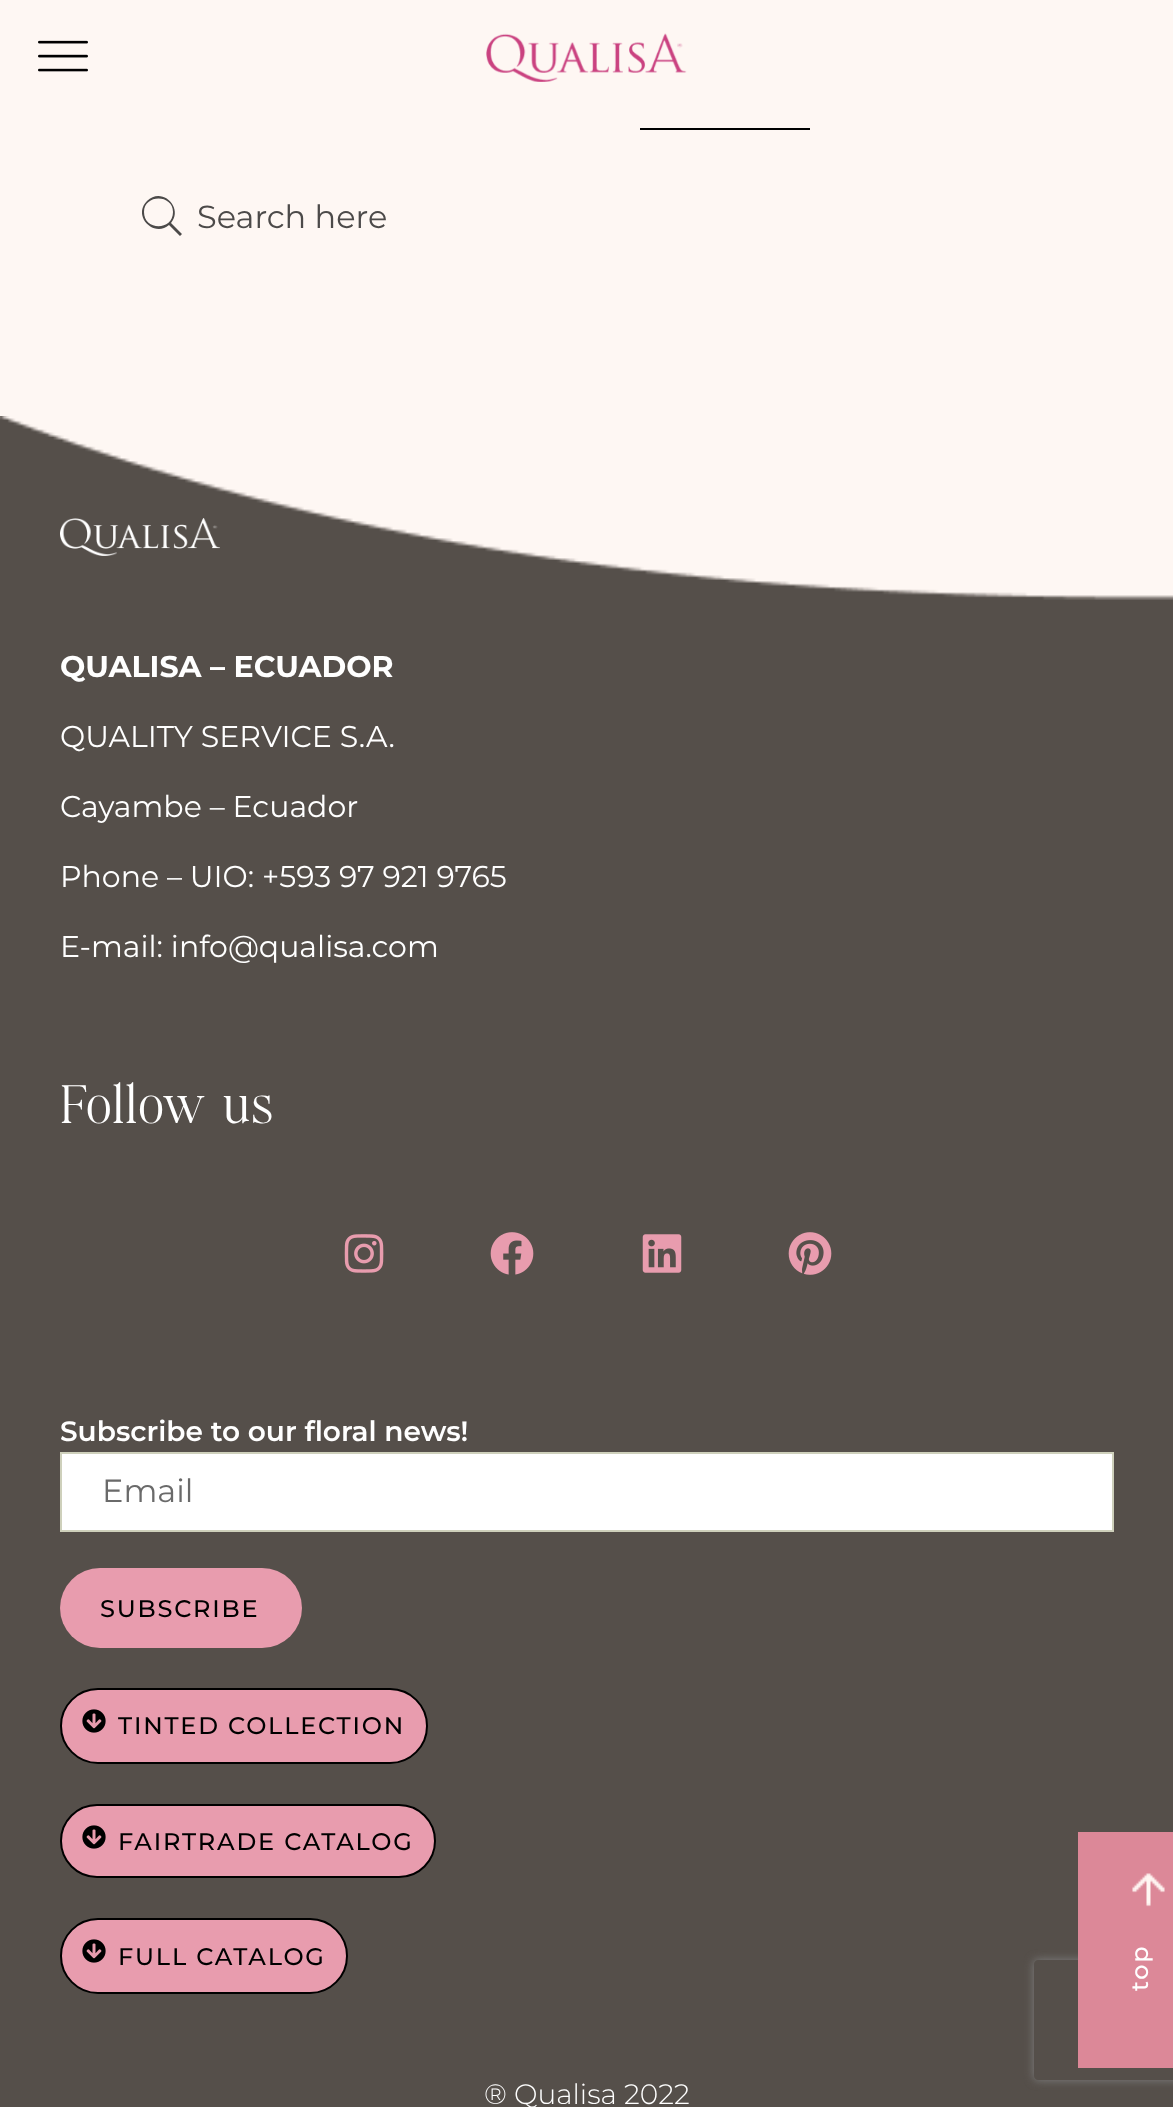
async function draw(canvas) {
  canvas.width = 1173
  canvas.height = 2107
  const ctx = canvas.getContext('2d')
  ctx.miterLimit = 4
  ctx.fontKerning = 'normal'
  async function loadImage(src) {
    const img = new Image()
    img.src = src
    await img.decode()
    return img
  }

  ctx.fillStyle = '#fef7f3'
  ctx.fillRect(0, 0, 1173, 2107)
  ctx.drawImage(await loadImage('image0.png'), 38, 40, 50, 32)
  ctx.drawImage(await loadImage('image1.png'), 486, 33, 201, 49)
  ctx.fillStyle = '#000'
  ctx.fillRect(640, 128, 170, 2)
  ctx.fillStyle = '#4c4a49'
  ctx.beginPath()
  ctx.moveTo(182, 234)
  ctx.lineTo(171, 223)
  ctx.bezierCurveTo(184, 208, 162, 186, 147, 201)
  ctx.bezierCurveTo(132, 216, 154, 238, 169, 225)
  ctx.lineTo(180, 236)
  ctx.closePath()
  ctx.moveTo(144, 212)
  ctx.bezierCurveTo(144, 194, 173, 194, 173, 212)
  ctx.bezierCurveTo(173, 231, 144, 231, 144, 212)
  ctx.closePath()
  ctx.fill()
  ctx.font = '32px Montserrat'
  ctx.fillText('Search here', 197, 228)
  ctx.drawImage(await loadImage('image2.png'), 0, 416, 1173, 1598)
  ctx.drawImage(await loadImage('image3.png'), 60, 518, 160, 38)
  ctx.font = 'bold 30px Montserrat'
  ctx.fillStyle = '#fff'
  ctx.fillText('QUALISA – ECUADOR', 60, 677)
  ctx.font = '30px Montserrat'
  ctx.fillText('QUALITY SERVICE S.A.', 60, 747)
  ctx.fillText('Cayambe – Ecuador', 60, 817)
  ctx.fillText('Phone – UIO: +593 97 921 9765', 60, 887)
  ctx.fillText('E-mail: info@qualisa.com', 60, 957)
  ctx.font = '54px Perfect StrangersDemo'
  ctx.fillText('Follow us', 60, 1123)
  ctx.drawImage(await loadImage('image4.png'), 344, 1234, 40, 39)
  ctx.drawImage(await loadImage('image5.png'), 490, 1232, 44, 43)
  ctx.drawImage(await loadImage('image6.png'), 642, 1234, 40, 39)
  ctx.drawImage(await loadImage('image7.png'), 788, 1232, 44, 43)
  ctx.font = '600 28px Montserrat'
  ctx.fillText('Subscribe to our floral news!', 60, 1441)
  ctx.beginPath()
  ctx.rect(61, 1453, 1052, 78)
  ctx.fill()
  ctx.strokeStyle = '#ced0bb'
  ctx.lineWidth = 2
  ctx.stroke()
  ctx.font = '32px Montserrat'
  ctx.fillStyle = '#6a6a6a'
  ctx.fillText('Email', 102, 1502)
  ctx.fillStyle = '#e89cae'
  ctx.beginPath()
  ctx.roundRect(60, 1568, 242, 80, 40)
  ctx.fill()
  ctx.letterSpacing = '1.8px'
  ctx.font = '500 24px Montserrat'
  ctx.fillStyle = '#000'
  ctx.fillText('SUBSCRIBE', 100, 1617)
  ctx.fillStyle = '#e89cae'
  ctx.beginPath()
  ctx.roundRect(61, 1689, 366, 74, 37)
  ctx.fill()
  ctx.strokeStyle = '#000'
  ctx.stroke()
  ctx.drawImage(await loadImage('image8.png'), 82, 1709, 24, 24)
  ctx.fillStyle = '#000'
  ctx.fillText('TINTED COLLECTION', 118, 1734)
  ctx.fillStyle = '#e89cae'
  ctx.beginPath()
  ctx.roundRect(61, 1805, 374, 72, 36)
  ctx.fill()
  ctx.stroke()
  ctx.drawImage(await loadImage('image8.png'), 82, 1825, 24, 24)
  ctx.fillStyle = '#000'
  ctx.fillText('FAIRTRADE CATALOG', 118, 1850)
  ctx.fillStyle = '#e89cae'
  ctx.beginPath()
  ctx.roundRect(61, 1919, 286, 74, 37)
  ctx.fill()
  ctx.stroke()
  ctx.drawImage(await loadImage('image8.png'), 82, 1939, 24, 24)
  ctx.fillStyle = '#000'
  ctx.fillText('FULL CATALOG', 118, 1965)
  ctx.fillStyle = '#554f4a'
  ctx.fillRect(0, 2014, 1173, 93)
  ctx.letterSpacing = '0px'
  ctx.font = '300 28px Montserrat'
  ctx.fillStyle = '#fff'
  ctx.fillText('® Qualisa 2022', 484, 2104)
  ctx.save()
  ctx.beginPath()
  ctx.moveTo(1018, 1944)
  ctx.lineTo(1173, 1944)
  ctx.lineTo(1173, 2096)
  ctx.lineTo(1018, 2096)
  ctx.closePath()
  ctx.moveTo(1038, 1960)
  ctx.lineTo(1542, 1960)
  ctx.bezierCurveTo(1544, 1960, 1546, 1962, 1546, 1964)
  ctx.lineTo(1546, 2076)
  ctx.bezierCurveTo(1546, 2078, 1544, 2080, 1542, 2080)
  ctx.lineTo(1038, 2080)
  ctx.bezierCurveTo(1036, 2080, 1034, 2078, 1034, 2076)
  ctx.lineTo(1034, 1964)
  ctx.bezierCurveTo(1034, 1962, 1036, 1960, 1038, 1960)
  ctx.closePath()
  ctx.clip('evenodd')
  ctx.fillStyle = '#808080'
  ctx.filter = 'blur(5px)'
  ctx.beginPath()
  ctx.roundRect(1034, 1960, 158, 120, 4)
  ctx.fill()
  ctx.filter = 'none'
  ctx.restore()
  ctx.fillStyle = '#dc8898'
  ctx.fillRect(1078, 1832, 95, 236)
  ctx.drawImage(await loadImage('image9.png'), 1132, 1873, 33, 34)
  ctx.letterSpacing = '1.8px'
  ctx.font = '500 24px Montserrat'
  ctx.fillStyle = '#fff'
  ctx.save()
  ctx.translate(1148, 1991)
  ctx.rotate(-90 * Math.PI / 180)
  ctx.fillText('top', 0, 0)
  ctx.restore()
}

draw(document.querySelector('canvas'))
